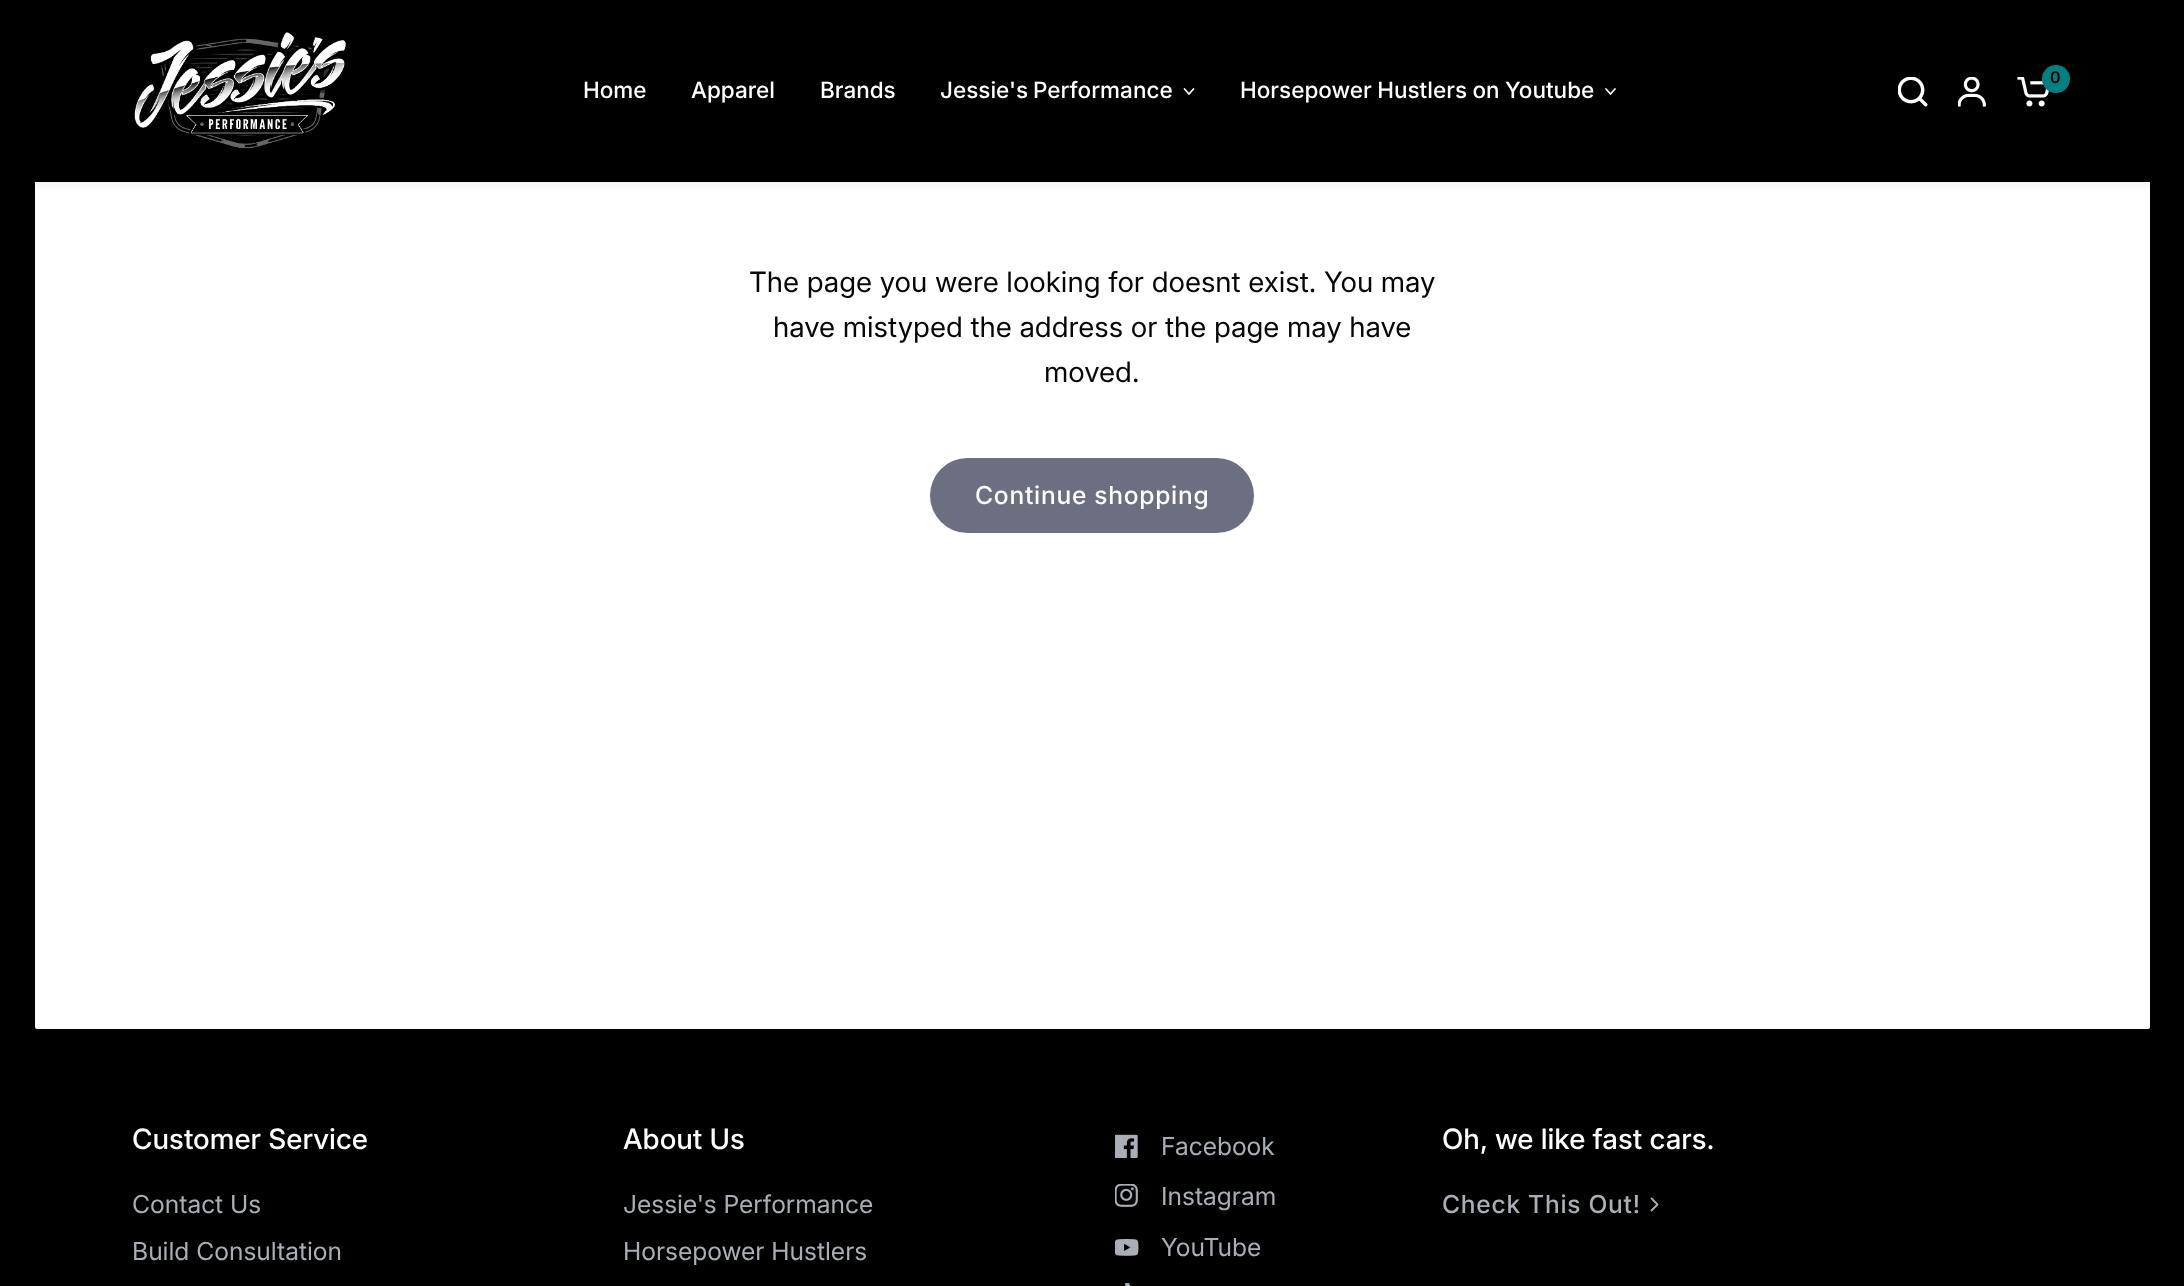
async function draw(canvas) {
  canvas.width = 2184
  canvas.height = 1286
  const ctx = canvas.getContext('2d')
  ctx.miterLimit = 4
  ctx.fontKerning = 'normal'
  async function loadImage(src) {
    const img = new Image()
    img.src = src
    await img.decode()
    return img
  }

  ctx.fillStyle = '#000'
  ctx.fillRect(0, 0, 2184, 1286)
  ctx.fillStyle = '#fff'
  ctx.beginPath()
  ctx.roundRect(35, -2, 2115, 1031, 2)
  ctx.fill()
  ctx.fillStyle = '#000'
  ctx.fillRect(35, 0, 2115, 182)
  ctx.save()
  ctx.beginPath()
  ctx.moveTo(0, 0)
  ctx.lineTo(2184, 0)
  ctx.lineTo(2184, 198)
  ctx.lineTo(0, 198)
  ctx.closePath()
  ctx.moveTo(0, 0)
  ctx.lineTo(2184, 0)
  ctx.lineTo(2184, 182)
  ctx.lineTo(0, 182)
  ctx.closePath()
  ctx.clip('evenodd')
  ctx.fillStyle = '#0000000f'
  ctx.filter = 'blur(4px)'
  ctx.beginPath()
  ctx.rect(0, 3, 2184, 182)
  ctx.fill()
  ctx.filter = 'none'
  ctx.restore()
  ctx.drawImage(await loadImage('image0.png'), 134, 32, 212, 117)
  ctx.drawImage(await loadImage('image1.png'), 1898, 77, 30, 30)
  ctx.drawImage(await loadImage('image2.png'), 1958, 77, 28, 30)
  ctx.drawImage(await loadImage('image3.png'), 2017, 77, 32, 30)
  ctx.fillStyle = '#008080'
  ctx.beginPath()
  ctx.arc(2056, 79, 14, 0, 2 * Math.PI)
  ctx.fill()
  ctx.font = '600 16px Inter'
  ctx.fillStyle = '#000'
  ctx.fillText('0', 2050, 83)
  ctx.font = '500 22.5px "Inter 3"'
  ctx.fillStyle = '#fff'
  ctx.fillText('Home', 583, 98)
  ctx.fillText('Apparel', 691, 98)
  ctx.fillText('Brands', 820, 98)
  ctx.wordSpacing = '-1px'
  ctx.fillText('Jessie\'s Performance', 940, 98)
  ctx.beginPath()
  ctx.moveTo(1193.5, 89)
  ctx.lineTo(1189, 94)
  ctx.lineTo(1184.5, 89)
  ctx.strokeStyle = '#fff'
  ctx.lineWidth = 1.7
  ctx.lineCap = 'round'
  ctx.lineJoin = 'round'
  ctx.stroke()
  ctx.wordSpacing = '-0.5px'
  ctx.fillText('Horsepower Hustlers on Youtube', 1240, 98)
  ctx.beginPath()
  ctx.moveTo(1615, 89)
  ctx.lineTo(1610.5, 94)
  ctx.lineTo(1606, 89)
  ctx.stroke()
  ctx.wordSpacing = '0px'
  ctx.font = '28.05px "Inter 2"'
  ctx.fillStyle = '#050606'
  ctx.fillText('The page you were looking for doesnt exist. You may', 749, 292)
  ctx.fillText('have mistyped the address or the page may have', 773, 337)
  ctx.fillText('moved.', 1044, 382)
  ctx.fillStyle = '#6c6f81'
  ctx.beginPath()
  ctx.roundRect(930, 458, 324, 75, 37.5)
  ctx.fill()
  ctx.letterSpacing = '0.75px'
  ctx.font = '500 24.75px "Inter 2"'
  ctx.fillStyle = '#fff'
  ctx.fillText('Continue shopping', 975, 504)
  ctx.letterSpacing = '0px'
  ctx.font = '500 28.05px Inter'
  ctx.fillText('Customer Service', 132, 1149)
  ctx.font = '24.75px Inter'
  ctx.fillStyle = '#aaaeb6'
  ctx.fillText('Contact Us', 132, 1213)
  ctx.fillText('Build Consultation', 132, 1260)
  ctx.font = '500 28.05px Inter'
  ctx.fillStyle = '#fff'
  ctx.fillText('About Us', 623, 1149)
  ctx.font = '24.75px Inter'
  ctx.fillStyle = '#aaaeb6'
  ctx.fillText('Jessie\'s Performance', 623, 1213)
  ctx.fillText('Horsepower Hustlers', 623, 1260)
  ctx.drawImage(await loadImage('image4.png'), 1115, 1134, 23, 24)
  ctx.fillText('Facebook', 1161, 1155)
  ctx.drawImage(await loadImage('image5.png'), 1115, 1184, 23, 23)
  ctx.fillText('Instagram', 1161, 1205)
  ctx.drawImage(await loadImage('image6.png'), 1115, 1239, 24, 17)
  ctx.fillText('YouTube', 1161, 1256)
  ctx.drawImage(await loadImage('image7.png'), 1125, 1283, 6, 3)
  ctx.font = '500 28.05px Inter'
  ctx.fillStyle = '#fff'
  ctx.fillText('Oh, we like fast cars.', 1442, 1149)
  ctx.letterSpacing = '0.75px'
  ctx.font = '500 24.75px "Inter 2"'
  ctx.fillStyle = '#aaaeb6'
  ctx.fillText('Check This Out!', 1442, 1213)
  ctx.beginPath()
  ctx.moveTo(1651.5, 1198.5)
  ctx.lineTo(1657.5, 1204.5)
  ctx.lineTo(1651.5, 1210.5)
  ctx.strokeStyle = '#aaaeb6'
  ctx.lineWidth = 1.8
  ctx.stroke()
}

draw(document.querySelector('canvas'))
